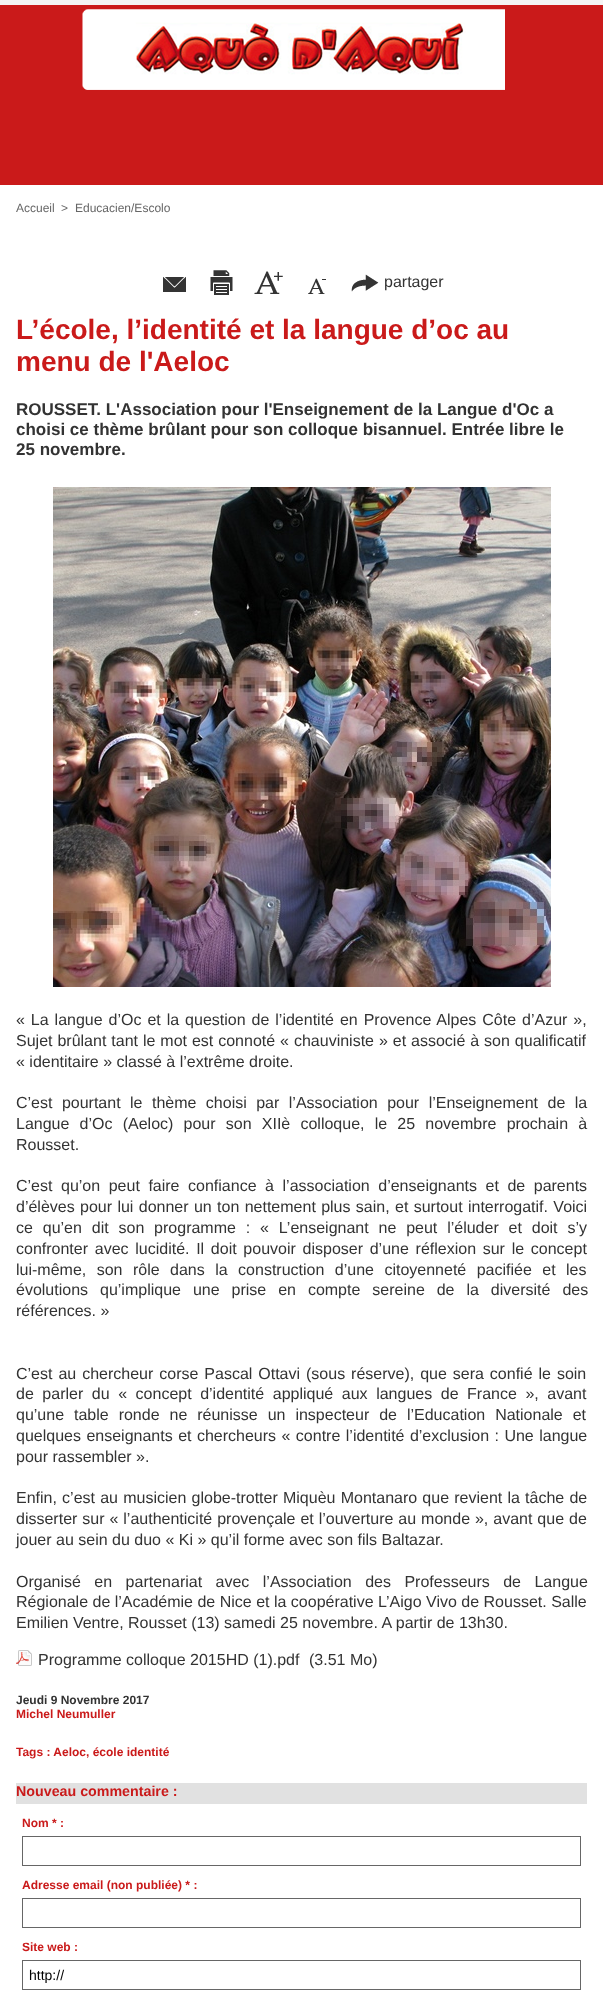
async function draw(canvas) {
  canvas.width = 603
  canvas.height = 1991
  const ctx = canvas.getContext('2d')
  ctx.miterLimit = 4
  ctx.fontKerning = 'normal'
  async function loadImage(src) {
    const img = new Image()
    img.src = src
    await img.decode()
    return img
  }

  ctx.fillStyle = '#f4f4f4'
  ctx.fillRect(0, 0, 603, 1991)
  ctx.fillStyle = '#ca1a1a'
  ctx.fillRect(0, 5, 603, 180)
  ctx.drawImage(await loadImage('image0.png'), 82, 9, 423, 81)
  ctx.fillStyle = '#fff'
  ctx.fillRect(0, 185, 603, 1806)
  ctx.font = '12px Liberation Sans'
  ctx.fillStyle = '#666'
  ctx.fillText('Accueil', 16, 212)
  ctx.fillText('>', 61, 212)
  ctx.fillText('Educacien/Escolo', 75, 212)
  ctx.drawImage(await loadImage('image1.png'), 163, 277, 23, 15)
  ctx.drawImage(await loadImage('image2.png'), 210, 270, 23, 25)
  ctx.drawImage(await loadImage('image3.png'), 254, 271, 29, 23)
  ctx.drawImage(await loadImage('image4.png'), 308, 278, 18, 16)
  ctx.drawImage(await loadImage('image5.png'), 351, 274, 28, 18)
  ctx.font = '16px Liberation Sans'
  ctx.fillStyle = '#333'
  ctx.fillText('partager', 384, 287)
  ctx.font = 'bold 28px Liberation Sans'
  ctx.fillStyle = '#ca1a1a'
  ctx.fillText('L’école, l’identité et la langue d’oc au', 16, 339)
  ctx.fillText('menu de l\'Aeloc', 16, 371)
  ctx.font = 'bold 17px Liberation Sans'
  ctx.fillStyle = '#333'
  ctx.fillText('ROUSSET. L\'Association pour l\'Enseignement de la Langue d\'Oc a', 16, 415)
  ctx.fillText('choisi ce thème brûlant pour son colloque bisannuel. Entrée libre le', 16, 435)
  ctx.fillText('25 novembre.', 16, 455)
  ctx.drawImage(await loadImage('image6.png'), 53, 487, 498, 500)
  ctx.wordSpacing = '1.5px'
  ctx.font = '16px Liberation Sans'
  ctx.fillText('« La langue d’Oc et la question de l’identité en Provence Alpes Côte d’Azur »,', 16, 1025)
  ctx.wordSpacing = '0.5px'
  ctx.fillText('Sujet brûlant tant le mot est connoté « chauviniste » et associé à son qualificatif', 16, 1046)
  ctx.wordSpacing = '0px'
  ctx.fillText('« identitaire » classé à l’extrême droite.', 16, 1067)
  ctx.wordSpacing = '5px'
  ctx.fillText('C’est pourtant le thème choisi par l’Association pour l’Enseignement de la', 16, 1108)
  ctx.wordSpacing = '5.75px'
  ctx.fillText('Langue d’Oc (Aeloc) pour son XIIè colloque, le 25 novembre prochain à', 16, 1129)
  ctx.wordSpacing = '0px'
  ctx.fillText('Rousset.', 16, 1150)
  ctx.wordSpacing = '4.1px'
  ctx.fillText('C’est qu’on peut faire confiance à l’association d’enseignants et de parents', 16, 1191)
  ctx.wordSpacing = '0.9px'
  ctx.fillText('d’élèves pour lui donner un ton nettement plus sain, et surtout interrogatif. Voici', 16, 1212)
  ctx.wordSpacing = '5.4px'
  ctx.fillText('ce qu’en dit son programme : « L’enseignant ne peut l’éluder et doit s’y', 16, 1233)
  ctx.wordSpacing = '2.25px'
  ctx.fillText('confronter avec lucidité. Il doit pouvoir disposer d’une réflexion sur le concept', 16, 1254)
  ctx.wordSpacing = '6px'
  ctx.fillText('lui-même, son rôle dans la construction d’une citoyenneté pacifiée et les', 16, 1275)
  ctx.wordSpacing = '7.5px'
  ctx.fillText('évolutions qu’implique une prise en compte sereine de la diversité des', 16, 1295)
  ctx.wordSpacing = '0px'
  ctx.fillText('références. »', 16, 1316)
  ctx.wordSpacing = '1.5px'
  ctx.fillText('C’est au chercheur corse Pascal Ottavi (sous réserve), que sera confié le soin', 16, 1379)
  ctx.wordSpacing = '4.1px'
  ctx.fillText('de parler du « concept d’identité appliqué aux langues de France », avant', 16, 1399)
  ctx.wordSpacing = '5.5px'
  ctx.fillText('qu’une table ronde ne réunisse un inspecteur de l’Education Nationale et', 16, 1420)
  ctx.wordSpacing = '1px'
  ctx.fillText('quelques enseignants et chercheurs « contre l’identité d’exclusion : Une langue', 16, 1441)
  ctx.wordSpacing = '0px'
  ctx.fillText('pour rassembler ».', 16, 1462)
  ctx.wordSpacing = '0.75px'
  ctx.fillText('Enfin, c’est au musicien globe-trotter Miquèu Montanaro que revient la tâche de', 16, 1503)
  ctx.wordSpacing = '0.5px'
  ctx.fillText('disserter sur « l’authenticité provençale et l’ouverture au monde », avant que de', 16, 1524)
  ctx.wordSpacing = '0px'
  ctx.fillText('jouer au sein du duo « Ki » qu’il forme avec son fils Baltazar.', 16, 1545)
  ctx.wordSpacing = '9px'
  ctx.fillText('Organisé en partenariat avec l’Association des Professeurs de Langue', 16, 1587)
  ctx.wordSpacing = '0px'
  ctx.fillText('Régionale de l’Académie de Nice et la coopérative L’Aigo Vivo de Rousset. Salle', 16, 1607)
  ctx.fillText('Emilien Ventre, Rousset (13) samedi 25 novembre. A partir de 13h30.', 16, 1628)
  ctx.drawImage(await loadImage('image7.png'), 16, 1650, 16, 16)
  ctx.fillText('Programme colloque 2015HD (1).pdf', 38, 1665)
  ctx.fillText('(3.51 Mo)', 309, 1665)
  ctx.font = 'bold 12px Liberation Sans'
  ctx.fillText('Jeudi 9 Novembre 2017', 16, 1704)
  ctx.fillStyle = '#ca1a1a'
  ctx.fillText('Michel Neumuller', 16, 1718)
  ctx.fillText('Tags : Aeloc, école identité', 16, 1756)
  ctx.fillStyle = '#e1e1e1'
  ctx.fillRect(16, 1783, 571, 21)
  ctx.font = 'bold 14.25px Liberation Sans'
  ctx.fillStyle = '#ca1a1a'
  ctx.fillText('Nouveau commentaire :', 16, 1796)
  ctx.font = 'bold 12px Liberation Sans'
  ctx.fillText('Nom * :', 22, 1827)
  ctx.strokeStyle = '#666'
  ctx.strokeRect(22.5, 1836.5, 558, 29)
  ctx.fillText('Adresse email (non publiée) * :', 22, 1889)
  ctx.strokeRect(22.5, 1898.5, 558, 29)
  ctx.fillText('Site web :', 22, 1951)
  ctx.strokeRect(22.5, 1960.5, 558, 29)
  ctx.font = '14px Liberation Sans'
  ctx.fillStyle = '#000'
  ctx.fillText('http://', 29, 1980)
}

draw(document.querySelector('canvas'))
